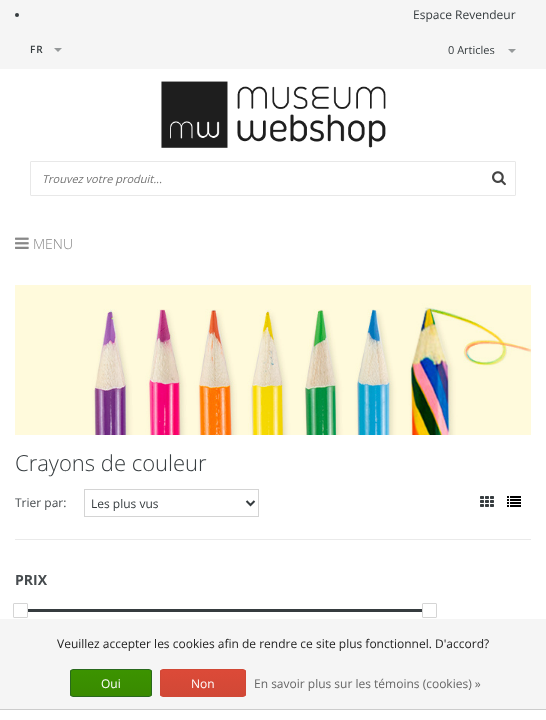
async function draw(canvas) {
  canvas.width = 546
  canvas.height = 720
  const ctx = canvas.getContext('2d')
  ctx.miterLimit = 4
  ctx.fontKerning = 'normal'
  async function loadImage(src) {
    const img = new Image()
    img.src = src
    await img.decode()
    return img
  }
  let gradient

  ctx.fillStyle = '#fff'
  ctx.fillRect(0, 0, 546, 720)
  ctx.fillStyle = '#f5f5f5'
  ctx.fillRect(0, 0, 546, 69)
  ctx.fillStyle = '#363c3f'
  ctx.beginPath()
  ctx.arc(17, 15, 2, 0, 2 * Math.PI)
  ctx.fill()
  ctx.font = '12px Open Sans'
  ctx.fillText('Espace Revendeur', 413, 19)
  ctx.letterSpacing = '1px'
  ctx.font = '600 10px Open Sans'
  ctx.fillText('FR', 30, 53)
  ctx.fillStyle = '#96999a'
  ctx.beginPath()
  ctx.moveTo(54, 48)
  ctx.lineTo(62, 48)
  ctx.lineTo(58, 52)
  ctx.closePath()
  ctx.fill()
  ctx.letterSpacing = '0px'
  ctx.font = '11px Open Sans'
  ctx.fillStyle = '#363c3f'
  ctx.fillText('0 Articles', 448, 54)
  ctx.fillStyle = '#96999a'
  ctx.beginPath()
  ctx.moveTo(508, 49)
  ctx.lineTo(516, 49)
  ctx.lineTo(512, 53)
  ctx.closePath()
  ctx.fill()
  ctx.drawImage(await loadImage('image0.png'), 161, 81, 225, 67)
  ctx.beginPath()
  ctx.roundRect(30.5, 161.5, 485, 34, 0.5)
  ctx.strokeStyle = '#e8e8e8'
  ctx.stroke()
  ctx.font = 'italic 11px Open Sans'
  ctx.fillStyle = '#757575'
  ctx.fillText('Trouvez votre produit...', 42, 183)
  ctx.drawImage(await loadImage('image1.png'), 492, 171, 14, 15)
  ctx.drawImage(await loadImage('image2.png'), 15, 237, 14, 12)
  ctx.font = '300 14px Open Sans'
  ctx.fillStyle = '#888'
  ctx.fillText('MENU', 33, 249)
  ctx.drawImage(await loadImage('image3.png'), 15, 285, 516, 150)
  ctx.font = '300 22px Open Sans'
  ctx.fillStyle = '#363c3f'
  ctx.fillText('Crayons de couleur', 15, 471)
  ctx.font = '12px Open Sans'
  ctx.fillStyle = '#464b4e'
  ctx.fillText('Trier par:', 15, 507)
  ctx.strokeStyle = '#d4d4d4'
  ctx.strokeRect(84.5, 489.5, 174, 27)
  ctx.beginPath()
  ctx.moveTo(246.5, 501)
  ctx.lineTo(250.5, 505)
  ctx.lineTo(254.5, 501)
  ctx.strokeStyle = '#363c3f'
  ctx.lineWidth = 2
  ctx.stroke()
  ctx.fillStyle = '#363c3f'
  ctx.fillText('Les plus vus', 91, 508)
  ctx.drawImage(await loadImage('image4.png'), 480, 496, 14, 11)
  ctx.drawImage(await loadImage('image5.png'), 507, 496, 14, 11)
  ctx.fillStyle = '#eaeaea'
  ctx.fillRect(15, 539, 516, 1)
  ctx.font = 'bold 14px Open Sans'
  ctx.fillStyle = '#464b4e'
  ctx.fillText('PRIX', 15, 585)
  ctx.fillStyle = '#363c3f'
  ctx.fillRect(21, 609, 409, 3)
  ctx.fillStyle = '#fff'
  ctx.beginPath()
  ctx.roundRect(13.5, 603.5, 14, 14, 0.5)
  ctx.fill()
  ctx.strokeStyle = '#d5d5d5'
  ctx.lineWidth = 1
  ctx.stroke()
  ctx.beginPath()
  ctx.roundRect(422.5, 603.5, 14, 14, 0.5)
  ctx.fill()
  ctx.stroke()
  ctx.fillStyle = '#f5f5f5'
  ctx.fillRect(0, 619, 546, 90)
  ctx.fillStyle = '#ccc'
  ctx.fillRect(0, 709, 546, 1)
  ctx.font = '12px Open Sans'
  ctx.fillStyle = '#222'
  ctx.fillText('Veuillez accepter les cookies afin de rendre ce site plus fonctionnel. D\'accord?', 57, 648)
  ctx.save()
  ctx.beginPath()
  ctx.roundRect(70, 669, 82, 28, 3)
  ctx.clip()
  gradient = ctx.createLinearGradient(111, 670, 111, 696)
  gradient.addColorStop(0, '#3c9300')
  gradient.addColorStop(1, '#398a00')
  ctx.fillStyle = gradient
  ctx.fillRect(70, 670, 82, 26)
  ctx.restore()
  ctx.beginPath()
  ctx.roundRect(70.5, 669.5, 81, 27, 2.5)
  ctx.strokeStyle = '#29691d'
  ctx.stroke()
  ctx.fillStyle = '#fff'
  ctx.fillText('Oui', 101, 688)
  ctx.save()
  ctx.beginPath()
  ctx.roundRect(160, 669, 86, 28, 3)
  ctx.clip()
  gradient = ctx.createLinearGradient(203, 670, 203, 696)
  gradient.addColorStop(0, '#dc4a38')
  gradient.addColorStop(1, '#d14836')
  ctx.fillStyle = gradient
  ctx.fillRect(160, 670, 86, 26)
  ctx.restore()
  ctx.beginPath()
  ctx.roundRect(160.5, 669.5, 85, 27, 2.5)
  ctx.strokeStyle = '#d14836'
  ctx.stroke()
  ctx.fillText('Non', 191, 688)
  ctx.fillStyle = '#666'
  ctx.fillText('En savoir plus sur les témoins (cookies) »', 254, 688)
}

draw(document.querySelector('canvas'))
